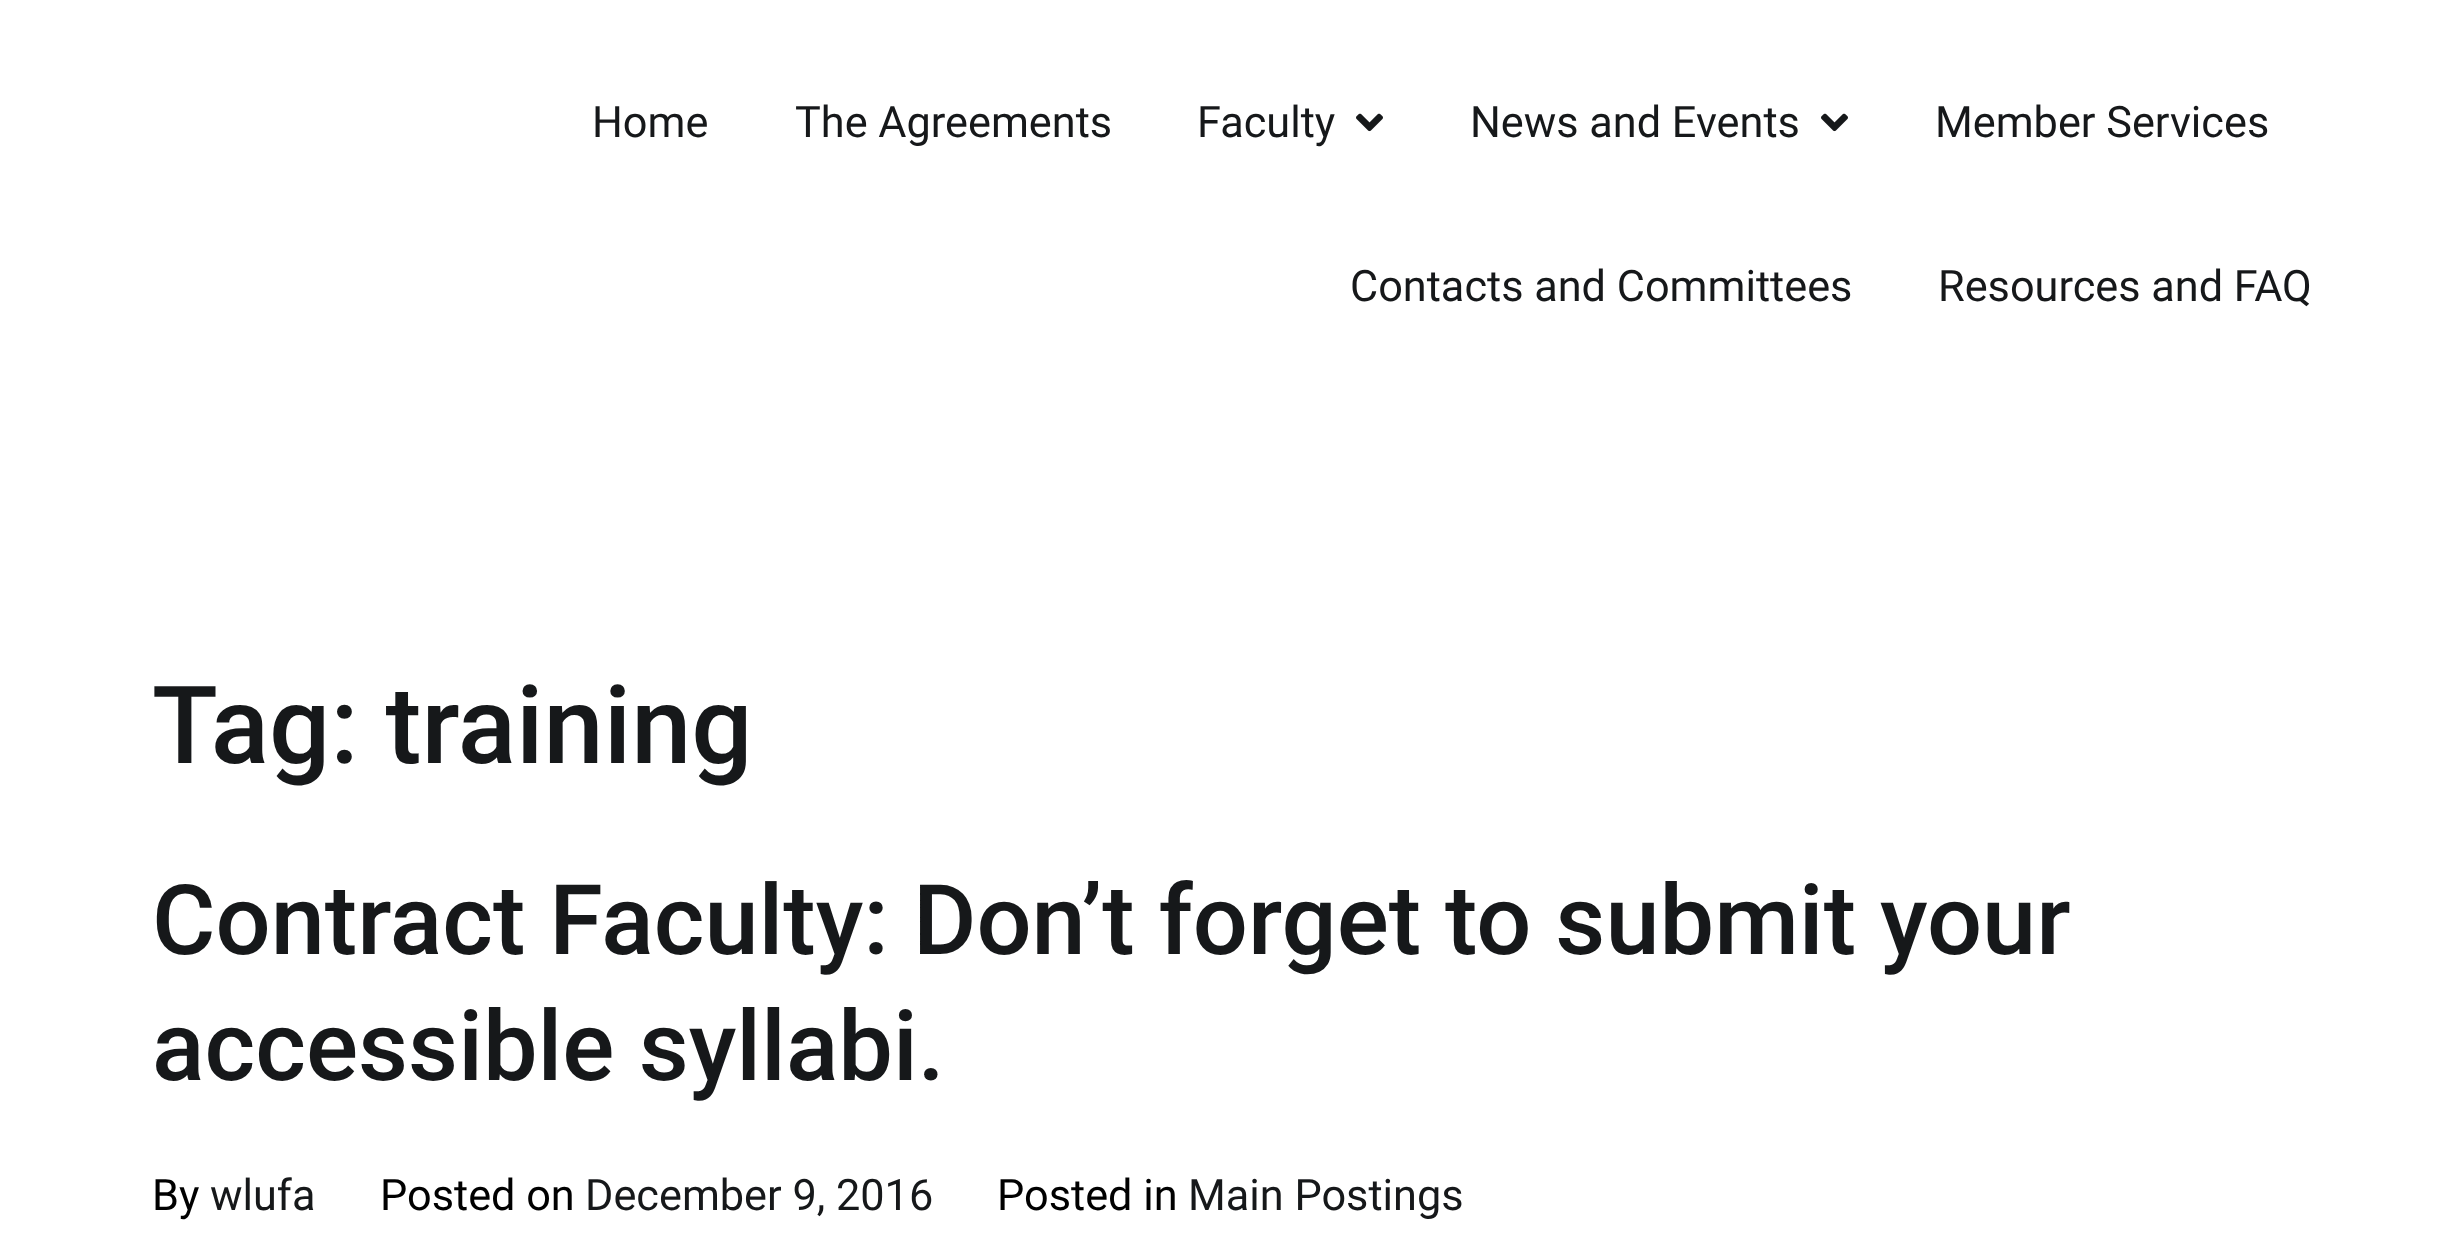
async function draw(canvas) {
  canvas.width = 2462
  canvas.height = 1243
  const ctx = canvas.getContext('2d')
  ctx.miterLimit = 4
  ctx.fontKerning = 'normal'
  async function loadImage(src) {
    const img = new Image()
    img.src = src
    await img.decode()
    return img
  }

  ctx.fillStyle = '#fff'
  ctx.fillRect(0, 0, 2462, 1243)
  ctx.font = '43.25px Roboto'
  ctx.fillStyle = '#16181a'
  ctx.fillText('Home', 592, 137)
  ctx.fillText('The Agreements', 795, 137)
  ctx.fillText('Faculty', 1197, 137)
  ctx.drawImage(await loadImage('image0.png'), 1356, 113, 27, 19)
  ctx.fillText('News and Events', 1470, 137)
  ctx.drawImage(await loadImage('image0.png'), 1821, 113, 27, 19)
  ctx.fillText('Member Services', 1935, 137)
  ctx.fillText('Contacts and Committees', 1350, 301)
  ctx.fillText('Resources and FAQ', 1938, 301)
  ctx.font = '500 108px Roboto'
  ctx.fillText('Tag: training', 152, 763)
  ctx.wordSpacing = '-0.25px'
  ctx.font = '500 97.25px Roboto'
  ctx.fillText('Contract Faculty: Don’t forget to submit your', 152, 954)
  ctx.wordSpacing = '0px'
  ctx.fillText('accessible syllabi.', 152, 1080)
  ctx.font = '43.25px Roboto'
  ctx.fillStyle = '#000'
  ctx.fillText('By', 152, 1210)
  ctx.fillStyle = '#16181a'
  ctx.fillText('wlufa', 210, 1210)
  ctx.fillStyle = '#000'
  ctx.fillText('Posted on', 380, 1210)
  ctx.fillStyle = '#16181a'
  ctx.fillText('December 9, 2016', 585, 1210)
  ctx.fillStyle = '#000'
  ctx.fillText('Posted in', 997, 1210)
  ctx.fillStyle = '#16181a'
  ctx.fillText('Main Postings', 1188, 1210)
}

draw(document.querySelector('canvas'))
